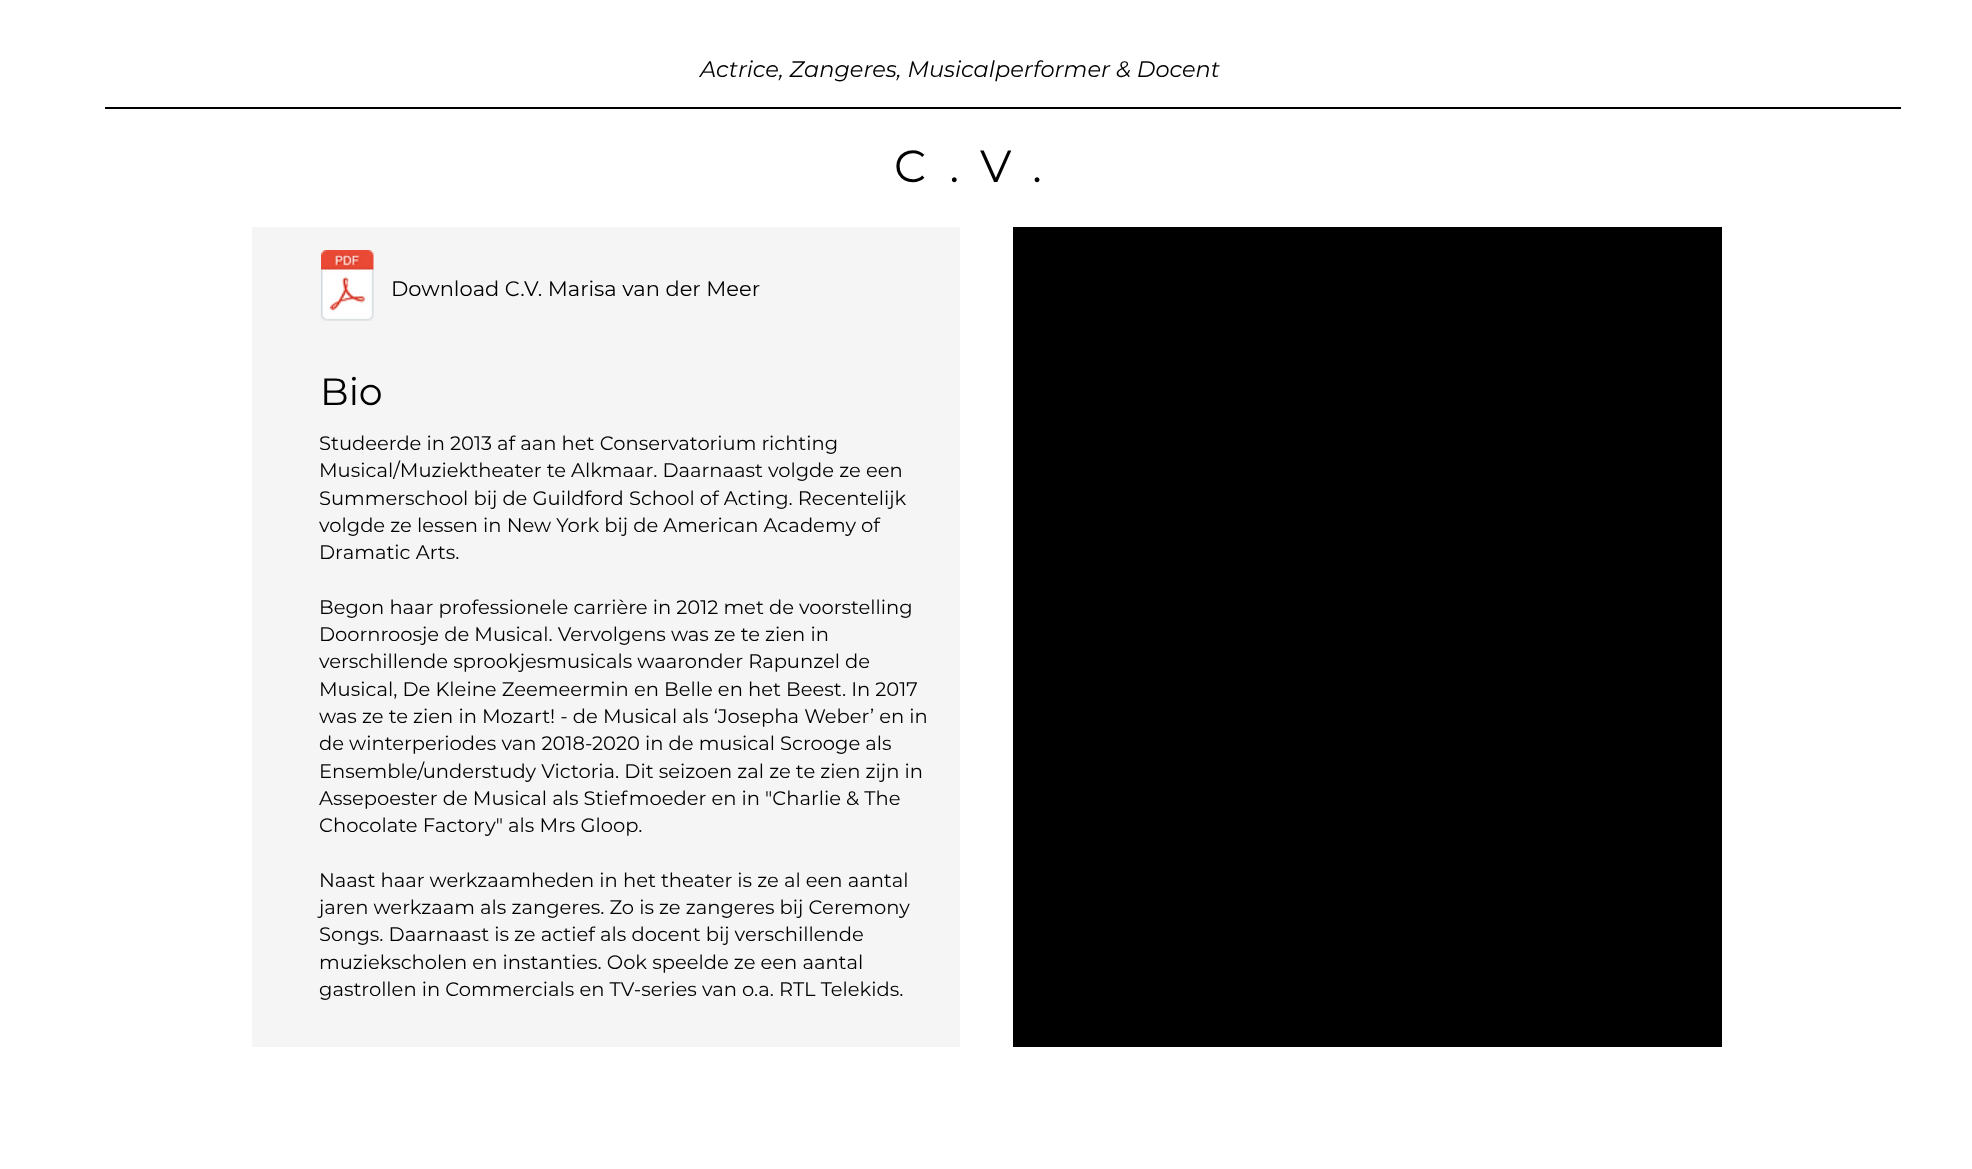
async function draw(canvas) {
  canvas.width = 1972
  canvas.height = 1169
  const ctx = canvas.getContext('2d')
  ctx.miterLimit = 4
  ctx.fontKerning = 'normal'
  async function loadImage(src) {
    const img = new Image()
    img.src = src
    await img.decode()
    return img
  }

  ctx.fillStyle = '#fff'
  ctx.fillRect(0, 0, 1972, 1169)
  ctx.font = 'italic 22.5px Montserrat'
  ctx.fillStyle = '#000'
  ctx.fillText('Actrice, Zangeres, Musicalperformer & Docent', 700, 77)
  ctx.fillRect(105, 107, 1796, 2)
  ctx.letterSpacing = '22.5px'
  ctx.font = '45px Montserrat'
  ctx.fillText('C.V.', 894, 182)
  ctx.fillStyle = '#f5f5f5'
  ctx.fillRect(252, 227, 708, 820)
  ctx.drawImage(await loadImage('image0.png'), 321, 250, 53, 71)
  ctx.letterSpacing = '0px'
  ctx.font = '21px Montserrat'
  ctx.fillStyle = '#000'
  ctx.fillText('Download C.V. Marisa van der Meer', 391, 296)
  ctx.font = '38px Montserrat'
  ctx.fillText('Bio', 320, 405)
  ctx.font = '19.5px Montserrat'
  ctx.fillText('Studeerde in 2013 af aan het Conservatorium richting', 319, 450)
  ctx.fillText('Musical/Muziektheater te Alkmaar. Daarnaast volgde ze een', 319, 477)
  ctx.fillText('Summerschool bij de Guildford School of Acting. Recentelijk', 319, 505)
  ctx.fillText('volgde ze lessen in New York bij de American Academy of', 319, 532)
  ctx.fillText('Dramatic Arts.', 319, 559)
  ctx.fillText('Begon haar professionele carrière in 2012 met de voorstelling', 319, 614)
  ctx.fillText('Doornroosje de Musical. Vervolgens was ze te zien in', 319, 641)
  ctx.fillText('verschillende sprookjesmusicals waaronder Rapunzel de', 319, 668)
  ctx.fillText('Musical, De Kleine Zeemeermin en Belle en het Beest. In 2017', 319, 696)
  ctx.fillText('was ze te zien in Mozart! - de Musical als ‘Josepha Weber’ en in', 319, 723)
  ctx.fillText('de winterperiodes van 2018-2020 in de musical Scrooge als', 319, 750)
  ctx.fillText('Ensemble/understudy Victoria. Dit seizoen zal ze te zien zijn in', 319, 778)
  ctx.fillText('Assepoester de Musical als Stiefmoeder en in "Charlie & The', 319, 805)
  ctx.fillText('Chocolate Factory" als Mrs Gloop.', 319, 832)
  ctx.fillText('Naast haar werkzaamheden in het theater is ze al een aantal', 319, 887)
  ctx.fillText('jaren werkzaam als zangeres. Zo is ze zangeres bij Ceremony', 319, 914)
  ctx.fillText('Songs. Daarnaast is ze actief als docent bij verschillende', 319, 941)
  ctx.fillText('muziekscholen en instanties. Ook speelde ze een aantal', 319, 969)
  ctx.fillText('gastrollen in Commercials en TV-series van o.a. RTL Telekids.', 319, 996)
  ctx.fillRect(1013, 227, 709, 820)
}

draw(document.querySelector('canvas'))
